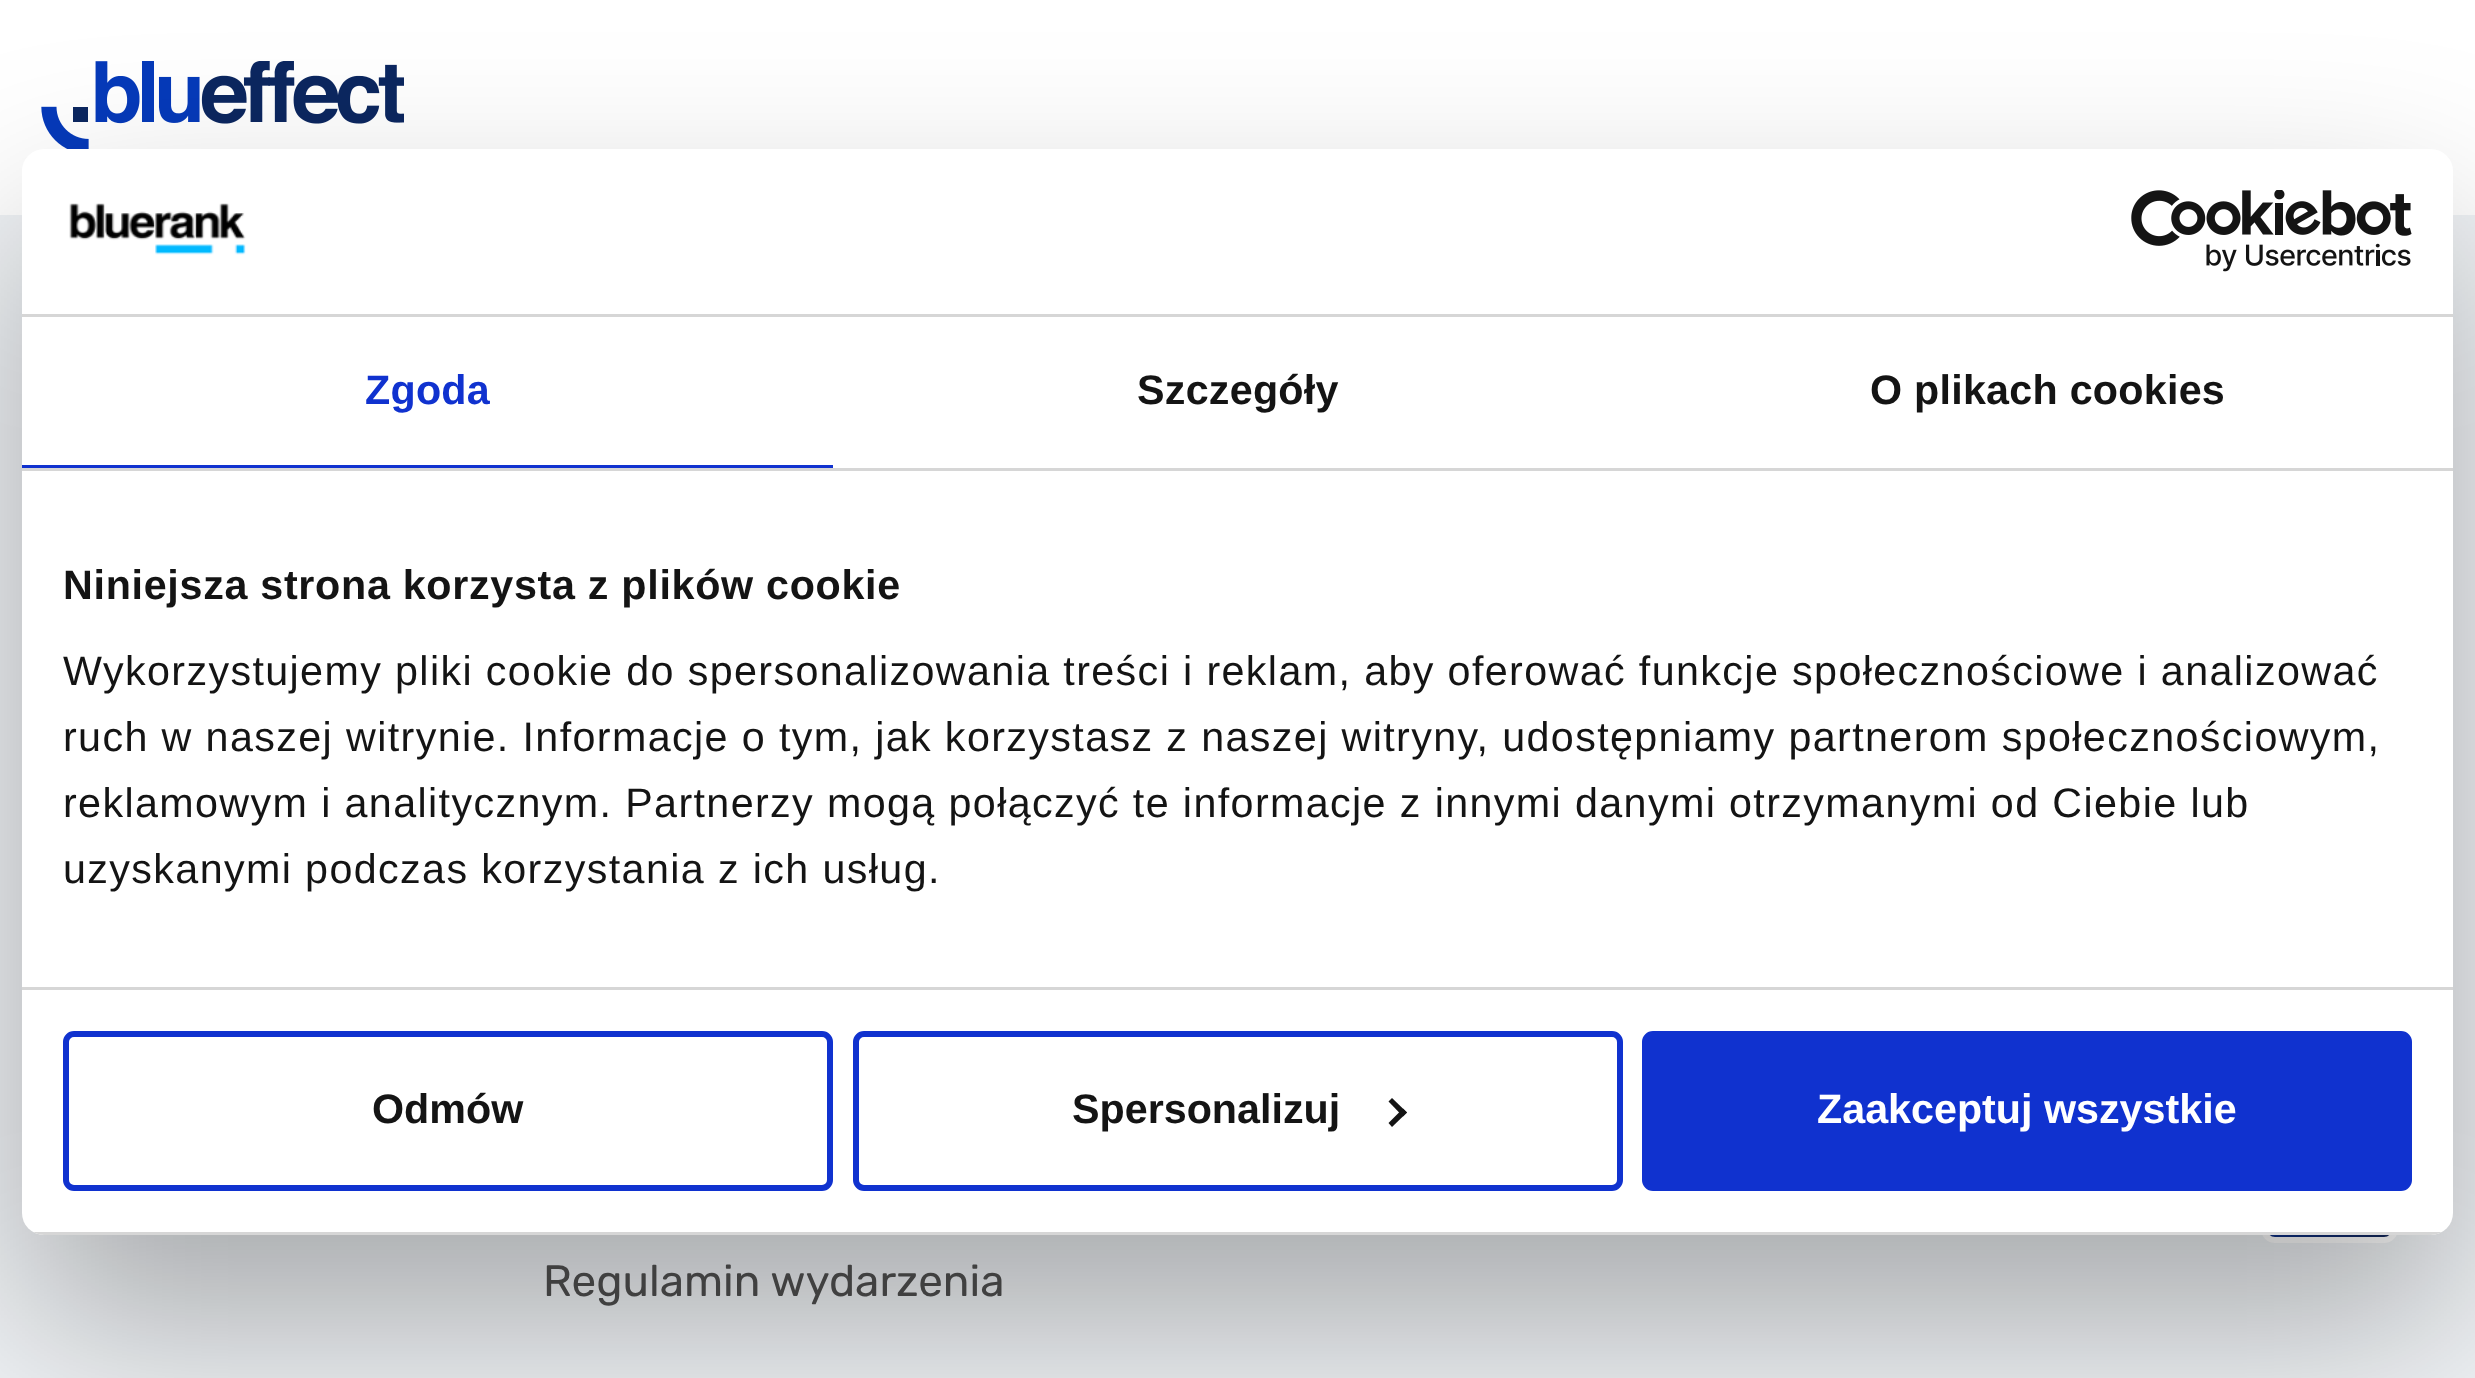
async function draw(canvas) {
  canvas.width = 2475
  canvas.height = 1378
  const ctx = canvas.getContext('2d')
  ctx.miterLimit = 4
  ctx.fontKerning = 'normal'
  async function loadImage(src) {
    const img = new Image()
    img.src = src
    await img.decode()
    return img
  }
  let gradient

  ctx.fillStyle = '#f0f3f6'
  ctx.fillRect(0, 0, 2475, 1378)
  ctx.fillStyle = '#fff'
  ctx.fillRect(0, 0, 2475, 215)
  ctx.drawImage(await loadImage('image0.png'), 41, 61, 363, 88)
  gradient = ctx.createLinearGradient(2266, 1111, 2393, 1238)
  gradient.addColorStop(0, '#063aba')
  gradient.addColorStop(1, '#132656')
  ctx.fillStyle = gradient
  ctx.fillRect(2269, 1235, 121, 2)
  ctx.beginPath()
  ctx.roundRect(2264, 1109, 131, 131, 11)
  ctx.strokeStyle = '#fff'
  ctx.lineWidth = 6
  ctx.stroke()
  ctx.fillStyle = '#0000004d'
  ctx.filter = 'blur(93.5px)'
  ctx.beginPath()
  ctx.roundRect(22, 237, 2431, 1086, 22)
  ctx.fill()
  ctx.filter = 'none'
  ctx.fillStyle = '#fff'
  ctx.beginPath()
  ctx.roundRect(22, 149, 2431, 1086, 22)
  ctx.fill()
  ctx.fillStyle = '#d6d6d6'
  ctx.fillRect(22, 314, 2431, 3)
  ctx.drawImage(await loadImage('image1.png'), 69, 203, 177, 52)
  ctx.drawImage(await loadImage('image2.png'), 2131, 190, 281, 82)
  ctx.fillRect(22, 468, 2431, 3)
  ctx.fillStyle = '#1032cf'
  ctx.fillRect(22, 465, 811, 3)
  ctx.letterSpacing = '0.25px'
  ctx.font = 'bold 41.25px Liberation Sans'
  ctx.fillText('Zgoda', 365, 404)
  ctx.fillStyle = '#141414'
  ctx.fillText('Szczegóły', 1137, 404)
  ctx.fillText('O plikach cookies', 1870, 404)
  ctx.fillStyle = '#d6d6d6'
  ctx.fillRect(22, 987, 2431, 3)
  ctx.letterSpacing = '0.7px'
  ctx.fillStyle = '#141414'
  ctx.fillText('Niniejsza strona korzysta z plików cookie', 63, 599)
  ctx.letterSpacing = '1.38px'
  ctx.font = '41.25px Liberation Sans'
  ctx.fillText('Wykorzystujemy pliki cookie do spersonalizowania treści i reklam, aby oferować funkcje społecznościowe i analizować', 63, 685)
  ctx.fillText('ruch w naszej witrynie. Informacje o tym, jak korzystasz z naszej witryny, udostępniamy partnerom społecznościowym,', 63, 751)
  ctx.fillText('reklamowym i analitycznym. Partnerzy mogą połączyć te informacje z innymi danymi otrzymanymi od Ciebie lub', 63, 817)
  ctx.fillText('uzyskanymi podczas korzystania z ich usług.', 63, 883)
  ctx.save()
  ctx.beginPath()
  ctx.roundRect(22, 149, 2431, 1086, 22)
  ctx.clip()
  ctx.fillStyle = '#d6d6d6'
  ctx.fillRect(33, 1232, 2409, 3)
  ctx.restore()
  ctx.beginPath()
  ctx.roundRect(66, 1034, 764, 154, 8)
  ctx.strokeStyle = '#1032cf'
  ctx.stroke()
  ctx.letterSpacing = '0px'
  ctx.font = 'bold 41.25px Liberation Sans'
  ctx.fillText('Odmów', 372, 1123)
  ctx.beginPath()
  ctx.roundRect(856, 1034, 764, 154, 8)
  ctx.stroke()
  ctx.fillText('Spersonalizuj', 1072, 1123)
  ctx.beginPath()
  ctx.moveTo(1392, 1098)
  ctx.lineTo(1407, 1112.5)
  ctx.lineTo(1403, 1116.5)
  ctx.lineTo(1388.5, 1101.5)
  ctx.closePath()
  ctx.fill()
  ctx.beginPath()
  ctx.moveTo(1403, 1108.5)
  ctx.lineTo(1407, 1112.5)
  ctx.lineTo(1392, 1127)
  ctx.lineTo(1388.5, 1123)
  ctx.closePath()
  ctx.fill()
  ctx.fillStyle = '#1032cf'
  ctx.beginPath()
  ctx.roundRect(1645, 1034, 764, 154, 8)
  ctx.fill()
  ctx.stroke()
  ctx.fillStyle = '#fff'
  ctx.fillText('Zaakceptuj wszystkie', 1817, 1123)
  ctx.font = '44px Rubik'
  ctx.fillStyle = '#404040'
  ctx.fillText('Regulamin wydarzenia', 543, 1296)
}

draw(document.querySelector('canvas'))
